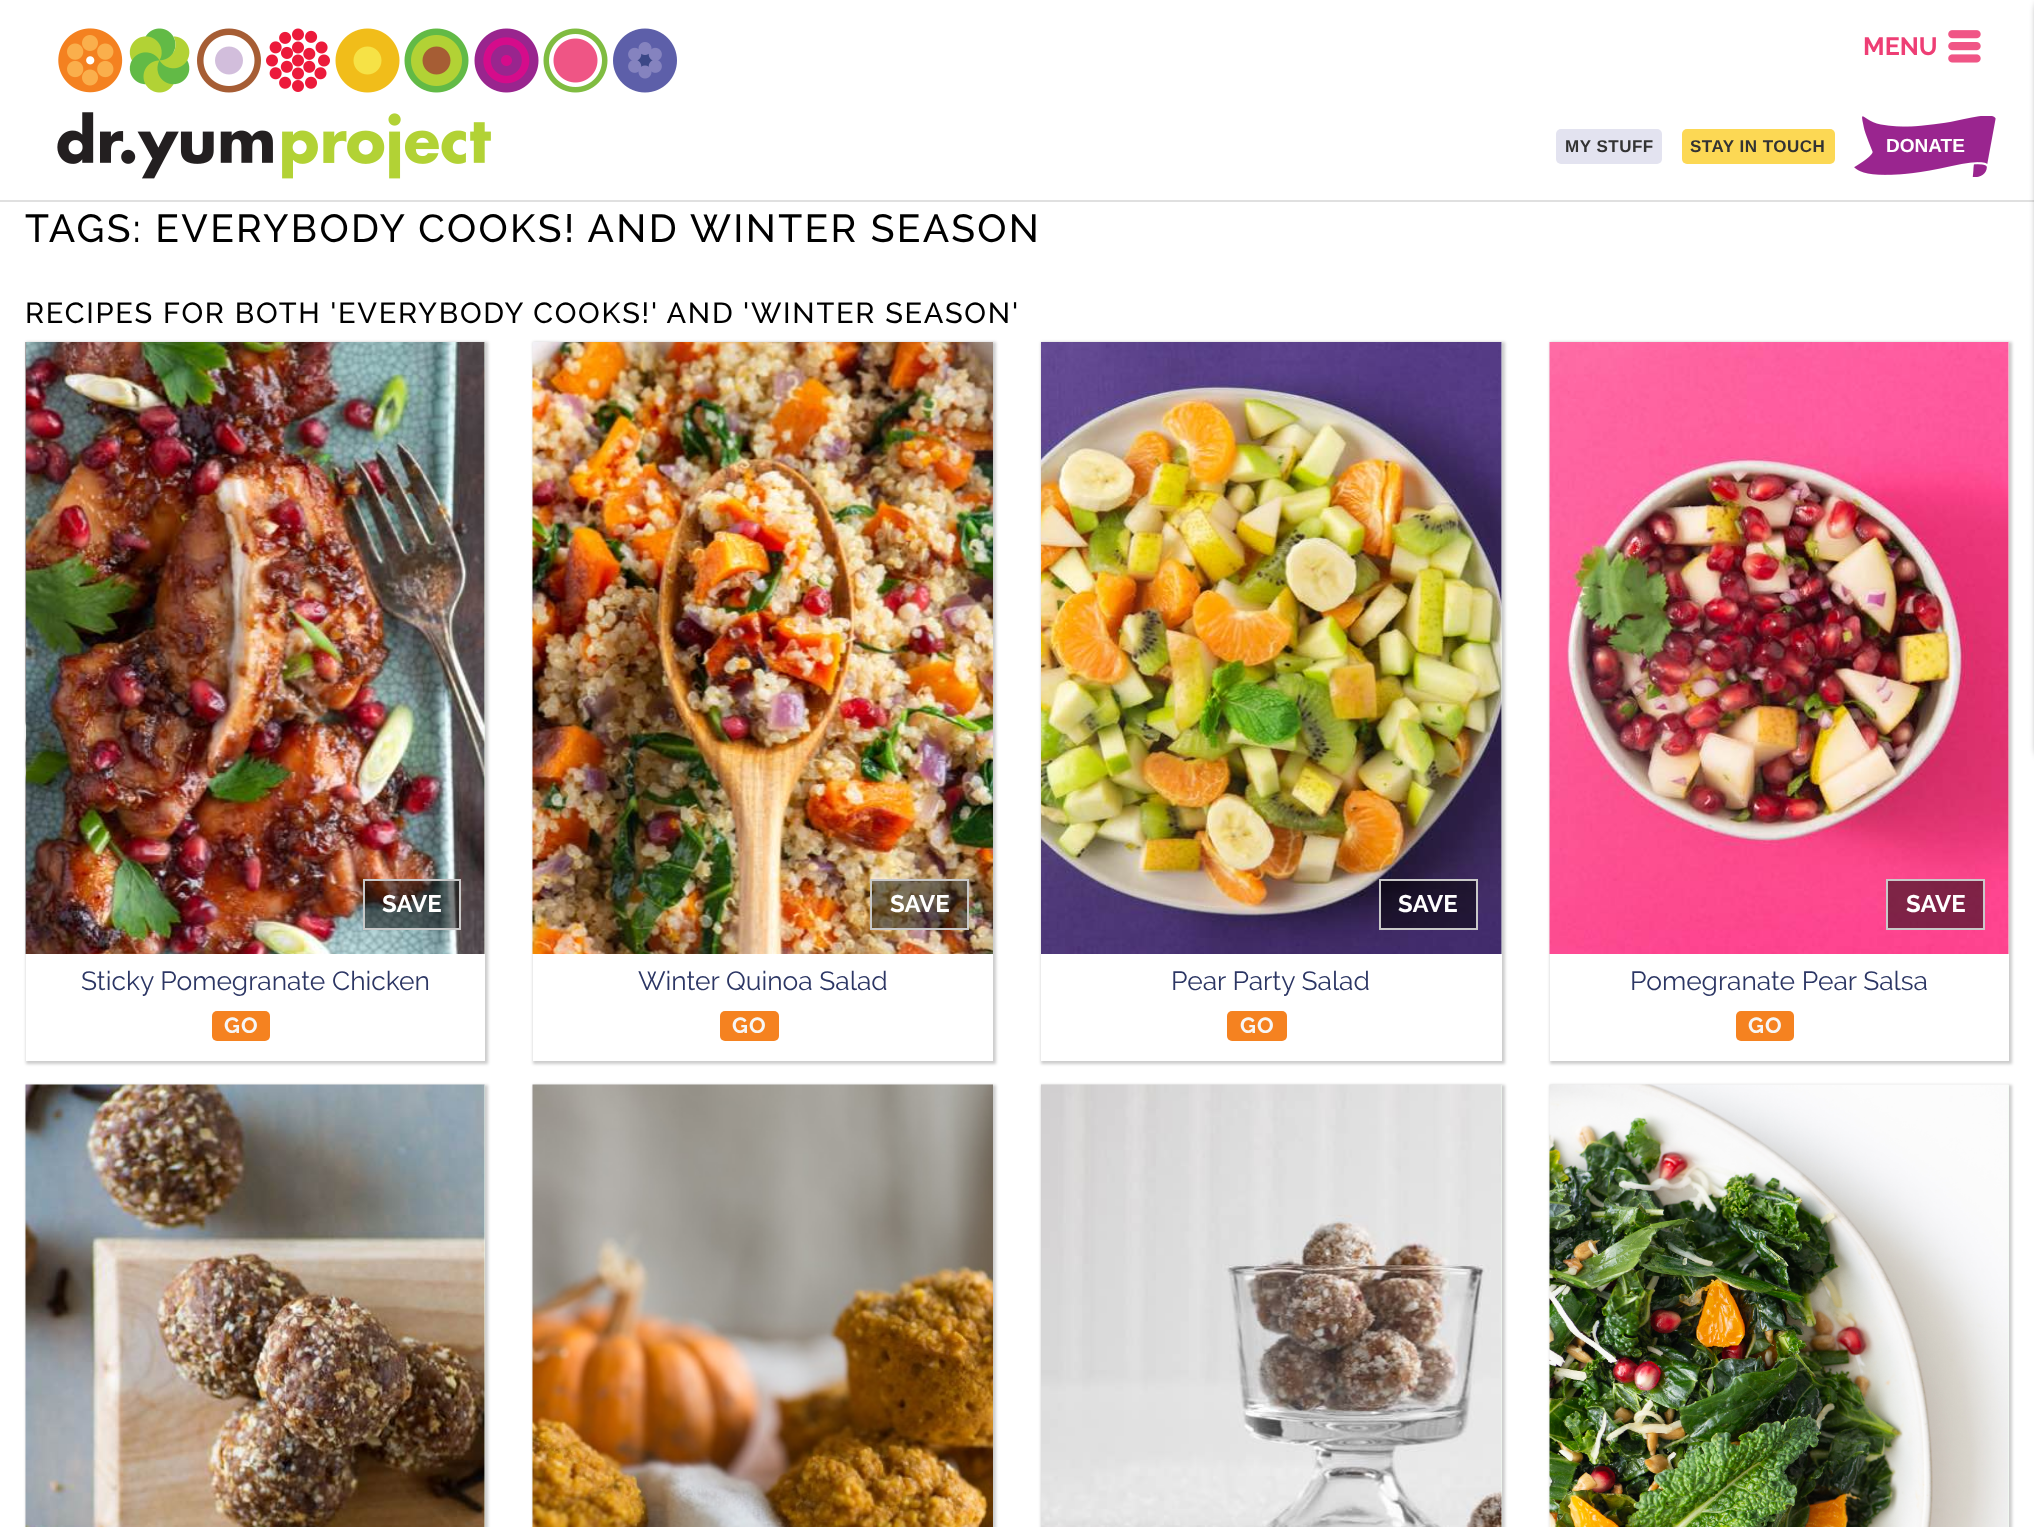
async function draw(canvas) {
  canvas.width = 2034
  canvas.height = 1527
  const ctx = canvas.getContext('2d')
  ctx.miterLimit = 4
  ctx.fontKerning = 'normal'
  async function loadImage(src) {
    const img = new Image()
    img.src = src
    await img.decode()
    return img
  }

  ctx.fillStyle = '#fff'
  ctx.fillRect(0, 0, 2034, 1527)
  ctx.fillStyle = '#e0e0e0'
  ctx.fillRect(0, 200, 2034, 2)
  ctx.drawImage(await loadImage('image0.png'), 58, 28, 619, 65)
  ctx.drawImage(await loadImage('image1.png'), 57, 112, 434, 67)
  ctx.font = 'bold 25px Raleway'
  ctx.fillStyle = '#ee3e75'
  ctx.fillText('MENU', 1863, 55)
  ctx.drawImage(await loadImage('image2.png'), 1948, 30, 33, 33)
  ctx.fillStyle = '#e3e3f0'
  ctx.beginPath()
  ctx.roundRect(1556, 129, 106, 35, 5)
  ctx.fill()
  ctx.letterSpacing = '0.5px'
  ctx.font = 'bold 17px Liberation Sans'
  ctx.fillStyle = '#333'
  ctx.fillText('MY STUFF', 1565, 152)
  ctx.fillStyle = '#fcd854'
  ctx.beginPath()
  ctx.roundRect(1682, 129, 153, 35, 5)
  ctx.fill()
  ctx.fillStyle = '#333'
  ctx.fillText('STAY IN TOUCH', 1690, 152)
  ctx.drawImage(await loadImage('image3.png'), 1854, 116, 142, 61)
  ctx.letterSpacing = '0px'
  ctx.font = 'bold 19px Liberation Sans'
  ctx.fillStyle = '#fff'
  ctx.fillText('DONATE', 1886, 152)
  ctx.fillStyle = '#00000066'
  ctx.filter = 'blur(3px)'
  ctx.beginPath()
  ctx.roundRect(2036, 0, 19, 758, 12)
  ctx.fill()
  ctx.filter = 'none'
  ctx.letterSpacing = '2.35px'
  ctx.font = '500 39.05px Raleway'
  ctx.fillStyle = '#000'
  ctx.fillText('TAGS: EVERYBODY COOKS! AND WINTER SEASON', 25, 242)
  ctx.letterSpacing = '1.75px'
  ctx.font = '500 29px Raleway'
  ctx.fillText('RECIPES FOR BOTH \'EVERYBODY COOKS!\' AND \'WINTER SEASON\'', 25, 323)
  ctx.save()
  ctx.beginPath()
  ctx.moveTo(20, 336)
  ctx.lineTo(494, 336)
  ctx.lineTo(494, 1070)
  ctx.lineTo(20, 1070)
  ctx.closePath()
  ctx.moveTo(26, 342)
  ctx.lineTo(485, 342)
  ctx.lineTo(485, 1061)
  ctx.lineTo(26, 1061)
  ctx.closePath()
  ctx.clip('evenodd')
  ctx.fillStyle = '#00000033'
  ctx.filter = 'blur(1.5px)'
  ctx.beginPath()
  ctx.rect(26, 342, 462, 722)
  ctx.fill()
  ctx.filter = 'none'
  ctx.restore()
  ctx.fillStyle = '#f0fff0'
  ctx.fillRect(484, 342, 1, 612)
  ctx.drawImage(await loadImage('image4.png'), 25, 342, 460, 612)
  ctx.fillStyle = '#00000080'
  ctx.beginPath()
  ctx.rect(364, 880, 96, 49)
  ctx.fill()
  ctx.strokeStyle = '#c9c9c9'
  ctx.lineWidth = 2
  ctx.stroke()
  ctx.letterSpacing = '0px'
  ctx.font = 'bold 24px Raleway'
  ctx.fillStyle = '#fff'
  ctx.fillText('SAVE', 382, 912)
  ctx.font = '26.4px Raleway'
  ctx.fillStyle = '#2c3664'
  ctx.fillText('Sticky Pomegranate Chicken', 81, 990)
  ctx.fillStyle = '#f58220'
  ctx.beginPath()
  ctx.roundRect(212, 1011, 58, 30, 5)
  ctx.fill()
  ctx.letterSpacing = '1px'
  ctx.font = 'bold 22px Raleway'
  ctx.fillStyle = '#f6f6f6'
  ctx.fillText('GO', 224, 1033)
  ctx.save()
  ctx.beginPath()
  ctx.moveTo(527, 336)
  ctx.lineTo(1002, 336)
  ctx.lineTo(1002, 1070)
  ctx.lineTo(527, 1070)
  ctx.closePath()
  ctx.moveTo(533, 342)
  ctx.lineTo(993, 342)
  ctx.lineTo(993, 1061)
  ctx.lineTo(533, 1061)
  ctx.closePath()
  ctx.clip('evenodd')
  ctx.fillStyle = '#00000033'
  ctx.filter = 'blur(1.5px)'
  ctx.beginPath()
  ctx.rect(533, 342, 463, 722)
  ctx.fill()
  ctx.filter = 'none'
  ctx.restore()
  ctx.drawImage(await loadImage('image5.png'), 532, 342, 461, 612)
  ctx.fillStyle = '#00000080'
  ctx.beginPath()
  ctx.rect(871, 880, 97, 49)
  ctx.fill()
  ctx.stroke()
  ctx.letterSpacing = '0px'
  ctx.font = 'bold 24px Raleway'
  ctx.fillStyle = '#fff'
  ctx.fillText('SAVE', 890, 912)
  ctx.font = '26.4px Raleway'
  ctx.fillStyle = '#2c3664'
  ctx.fillText('Winter Quinoa Salad', 638, 990)
  ctx.fillStyle = '#f58220'
  ctx.beginPath()
  ctx.roundRect(720, 1011, 59, 30, 5)
  ctx.fill()
  ctx.letterSpacing = '1px'
  ctx.font = 'bold 22px Raleway'
  ctx.fillStyle = '#f6f6f6'
  ctx.fillText('GO', 732, 1033)
  ctx.save()
  ctx.beginPath()
  ctx.moveTo(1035, 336)
  ctx.lineTo(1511, 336)
  ctx.lineTo(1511, 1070)
  ctx.lineTo(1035, 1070)
  ctx.closePath()
  ctx.moveTo(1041, 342)
  ctx.lineTo(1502, 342)
  ctx.lineTo(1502, 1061)
  ctx.lineTo(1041, 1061)
  ctx.closePath()
  ctx.clip('evenodd')
  ctx.fillStyle = '#00000033'
  ctx.filter = 'blur(1.5px)'
  ctx.beginPath()
  ctx.rect(1041, 342, 464, 722)
  ctx.fill()
  ctx.filter = 'none'
  ctx.restore()
  ctx.fillStyle = '#f0fff0'
  ctx.fillRect(1501, 342, 1, 612)
  ctx.drawImage(await loadImage('image6.png'), 1041, 342, 461, 612)
  ctx.fillStyle = '#00000080'
  ctx.beginPath()
  ctx.rect(1380, 880, 97, 49)
  ctx.fill()
  ctx.stroke()
  ctx.letterSpacing = '0px'
  ctx.font = 'bold 24px Raleway'
  ctx.fillStyle = '#fff'
  ctx.fillText('SAVE', 1398, 912)
  ctx.font = '26.4px Raleway'
  ctx.fillStyle = '#2c3664'
  ctx.fillText('Pear Party Salad', 1171, 990)
  ctx.fillStyle = '#f58220'
  ctx.beginPath()
  ctx.roundRect(1227, 1011, 60, 30, 5)
  ctx.fill()
  ctx.letterSpacing = '1px'
  ctx.font = 'bold 22px Raleway'
  ctx.fillStyle = '#f6f6f6'
  ctx.fillText('GO', 1240, 1033)
  ctx.save()
  ctx.beginPath()
  ctx.moveTo(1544, 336)
  ctx.lineTo(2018, 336)
  ctx.lineTo(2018, 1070)
  ctx.lineTo(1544, 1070)
  ctx.closePath()
  ctx.moveTo(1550, 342)
  ctx.lineTo(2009, 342)
  ctx.lineTo(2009, 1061)
  ctx.lineTo(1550, 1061)
  ctx.closePath()
  ctx.clip('evenodd')
  ctx.fillStyle = '#00000033'
  ctx.filter = 'blur(1.5px)'
  ctx.beginPath()
  ctx.rect(1550, 342, 462, 722)
  ctx.fill()
  ctx.filter = 'none'
  ctx.restore()
  ctx.fillStyle = '#f0fff0'
  ctx.fillRect(2008, 342, 1, 612)
  ctx.drawImage(await loadImage('image7.png'), 1549, 342, 460, 612)
  ctx.fillStyle = '#00000080'
  ctx.beginPath()
  ctx.rect(1887, 880, 97, 49)
  ctx.fill()
  ctx.stroke()
  ctx.letterSpacing = '0px'
  ctx.font = 'bold 24px Raleway'
  ctx.fillStyle = '#fff'
  ctx.fillText('SAVE', 1906, 912)
  ctx.font = '26.4px Raleway'
  ctx.fillStyle = '#2c3664'
  ctx.fillText('Pomegranate Pear Salsa', 1630, 990)
  ctx.fillStyle = '#f58220'
  ctx.beginPath()
  ctx.roundRect(1736, 1011, 58, 30, 5)
  ctx.fill()
  ctx.letterSpacing = '1px'
  ctx.font = 'bold 22px Raleway'
  ctx.fillStyle = '#f6f6f6'
  ctx.fillText('GO', 1748, 1033)
  ctx.fillStyle = '#00000033'
  ctx.filter = 'blur(1.5px)'
  ctx.beginPath()
  ctx.rect(26, 1085, 462, 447)
  ctx.fill()
  ctx.filter = 'none'
  ctx.fillStyle = '#f0fff0'
  ctx.fillRect(484, 1085, 1, 442)
  ctx.drawImage(await loadImage('image8.png'), 25, 1084, 460, 443)
  ctx.fillStyle = '#00000033'
  ctx.filter = 'blur(1.5px)'
  ctx.beginPath()
  ctx.rect(533, 1085, 463, 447)
  ctx.fill()
  ctx.filter = 'none'
  ctx.drawImage(await loadImage('image9.png'), 532, 1084, 461, 443)
  ctx.filter = 'blur(1.5px)'
  ctx.beginPath()
  ctx.rect(1041, 1085, 464, 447)
  ctx.fill()
  ctx.filter = 'none'
  ctx.fillStyle = '#f0fff0'
  ctx.fillRect(1501, 1085, 1, 442)
  ctx.drawImage(await loadImage('image10.png'), 1041, 1084, 461, 443)
  ctx.fillStyle = '#00000033'
  ctx.filter = 'blur(1.5px)'
  ctx.beginPath()
  ctx.rect(1550, 1085, 462, 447)
  ctx.fill()
  ctx.filter = 'none'
  ctx.fillStyle = '#f0fff0'
  ctx.fillRect(2008, 1085, 1, 442)
  ctx.drawImage(await loadImage('image11.png'), 1549, 1084, 460, 443)
}

draw(document.querySelector('canvas'))
